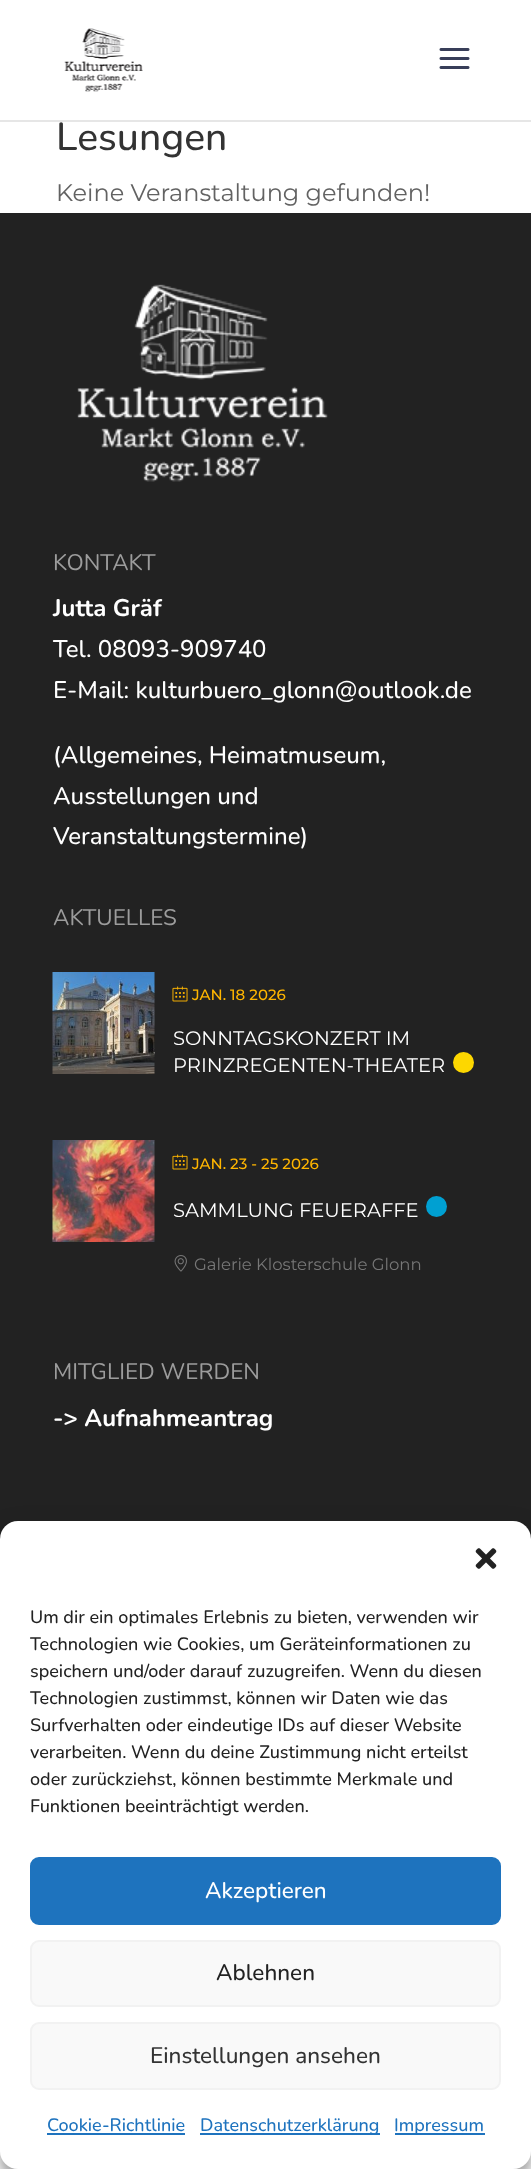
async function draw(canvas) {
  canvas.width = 531
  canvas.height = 2169
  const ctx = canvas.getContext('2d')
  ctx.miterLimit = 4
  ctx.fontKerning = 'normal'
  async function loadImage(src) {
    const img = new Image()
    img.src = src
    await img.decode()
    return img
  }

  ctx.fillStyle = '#fff'
  ctx.fillRect(0, 0, 531, 2169)
  ctx.fillStyle = '#e6e6e6'
  ctx.fillRect(0, 120, 531, 2)
  ctx.drawImage(await loadImage('image0.png'), 64, 28, 79, 64)
  ctx.drawImage(await loadImage('image1.png'), 439, 48, 31, 21)
  ctx.font = '200 39px Nunito'
  ctx.fillStyle = '#333'
  ctx.fillText('Lesungen', 56, 150)
  ctx.font = '24px Montserrat'
  ctx.fillStyle = '#626262'
  ctx.fillText('Keine Veranstaltung gefunden!', 56, 201)
  ctx.fillStyle = '#222'
  ctx.fillRect(0, 213, 531, 1326)
  ctx.drawImage(await loadImage('image2.png'), 77, 284, 251, 198)
  ctx.font = '200 22.5px "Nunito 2"'
  ctx.fillStyle = '#9c9c9c'
  ctx.fillText('KONTAKT', 53, 570)
  ctx.font = '200 24px "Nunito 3"'
  ctx.fillStyle = '#fff'
  ctx.fillText('Jutta Gräf', 53, 616)
  ctx.font = '200 24px Nunito'
  ctx.fillText('Tel. 08093-909740', 53, 657)
  ctx.fillText('E-Mail: kulturbuero_glonn@outlook.de', 53, 698)
  ctx.fillText('(Allgemeines, Heimatmuseum,', 53, 763)
  ctx.fillText('Ausstellungen und', 53, 804)
  ctx.fillText('Veranstaltungstermine)', 53, 844)
  ctx.font = '200 22.5px "Nunito 2"'
  ctx.fillStyle = '#9c9c9c'
  ctx.fillText('AKTUELLES', 53, 925)
  ctx.drawImage(await loadImage('image3.png'), 52, 972, 103, 102)
  ctx.drawImage(await loadImage('image4.png'), 172, 986, 16, 16)
  ctx.font = '500 15px Montserrat'
  ctx.fillStyle = '#ffb600'
  ctx.fillText('JAN. 18 2026', 192, 1000)
  ctx.font = '19.5px Montserrat'
  ctx.fillStyle = '#fff'
  ctx.fillText('SONNTAGSKONZERT IM', 173, 1045)
  ctx.fillText('PRINZREGENTEN-THEATER', 173, 1072)
  ctx.fillStyle = '#fdd700'
  ctx.beginPath()
  ctx.arc(463.5, 1062.5, 10.5, 0, 2 * Math.PI)
  ctx.fill()
  ctx.drawImage(await loadImage('image5.png'), 52, 1140, 103, 102)
  ctx.drawImage(await loadImage('image4.png'), 172, 1154, 16, 16)
  ctx.font = '500 15px Montserrat'
  ctx.fillStyle = '#ffb600'
  ctx.fillText('JAN. 23 - 25 2026', 192, 1169)
  ctx.font = '19.5px Montserrat'
  ctx.fillStyle = '#fff'
  ctx.fillText('SAMMLUNG FEUERAFFE', 173, 1217)
  ctx.fillStyle = '#00a0d2'
  ctx.beginPath()
  ctx.arc(436.5, 1206.5, 10.5, 0, 2 * Math.PI)
  ctx.fill()
  ctx.drawImage(await loadImage('image6.png'), 174, 1255, 13, 17)
  ctx.font = '16.5px Montserrat'
  ctx.fillStyle = '#777'
  ctx.fillText('Galerie Klosterschule Glonn', 194, 1270)
  ctx.font = '200 22.5px "Nunito 2"'
  ctx.fillStyle = '#9c9c9c'
  ctx.fillText('MITGLIED WERDEN', 53, 1379)
  ctx.font = '200 24px "Nunito 3"'
  ctx.fillStyle = '#fff'
  ctx.fillText('-> Aufnahmeantrag', 53, 1426)
  ctx.fillStyle = '#0000003b'
  ctx.filter = 'blur(4.5px)'
  ctx.beginPath()
  ctx.roundRect(0, 1530, 531, 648, 18)
  ctx.fill()
  ctx.filter = 'none'
  ctx.fillStyle = '#00000030'
  ctx.filter = 'blur(15px)'
  ctx.beginPath()
  ctx.roundRect(0, 1536, 531, 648, 18)
  ctx.fill()
  ctx.filter = 'none'
  ctx.fillStyle = '#fff'
  ctx.beginPath()
  ctx.roundRect(0, 1521, 531, 648, 18)
  ctx.fill()
  ctx.drawImage(await loadImage('image7.png'), 475, 1548, 22, 21)
  ctx.font = '200 18px Nunito'
  ctx.fillStyle = '#222'
  ctx.fillText('Um dir ein optimales Erlebnis zu bieten, verwenden wir', 30, 1623)
  ctx.fillText('Technologien wie Cookies, um Geräteinformationen zu', 30, 1650)
  ctx.fillText('speichern und/oder darauf zuzugreifen. Wenn du diesen', 30, 1677)
  ctx.fillText('Technologien zustimmst, können wir Daten wie das', 30, 1704)
  ctx.fillText('Surfverhalten oder eindeutige IDs auf dieser Website', 30, 1731)
  ctx.fillText('verarbeiten. Wenn du deine Zustimmung nicht erteilst', 30, 1758)
  ctx.fillText('oder zurückziehst, können bestimmte Merkmale und', 30, 1785)
  ctx.fillText('Funktionen beeinträchtigt werden.', 30, 1812)
  ctx.fillStyle = '#1e73be'
  ctx.beginPath()
  ctx.roundRect(31, 1858, 469, 66, 8)
  ctx.fill()
  ctx.strokeStyle = '#1e73be'
  ctx.lineWidth = 2
  ctx.stroke()
  ctx.font = '200 22.5px Nunito'
  ctx.fillStyle = '#fff'
  ctx.fillText('Akzeptieren', 205, 1898)
  ctx.fillStyle = '#f9f9f9'
  ctx.beginPath()
  ctx.roundRect(31, 1941, 469, 65, 8)
  ctx.fill()
  ctx.strokeStyle = '#f2f2f2'
  ctx.stroke()
  ctx.fillStyle = '#222'
  ctx.fillText('Ablehnen', 216, 1980)
  ctx.fillStyle = '#f9f9f9'
  ctx.beginPath()
  ctx.roundRect(31, 2023, 469, 66, 8)
  ctx.fill()
  ctx.stroke()
  ctx.fillStyle = '#333'
  ctx.fillText('Einstellungen ansehen', 150, 2063)
  ctx.font = '200 18px Nunito'
  ctx.fillStyle = '#1e73be'
  ctx.fillText('Cookie-Richtlinie', 47, 2131)
  ctx.fillRect(47, 2133, 138, 2)
  ctx.fillRect(200, 2133, 180, 2)
  ctx.fillText('Datenschutzerklärung', 200, 2131)
  ctx.fillRect(395, 2133, 90, 2)
  ctx.fillText('Impressum', 394, 2131)
}

draw(document.querySelector('canvas'))
